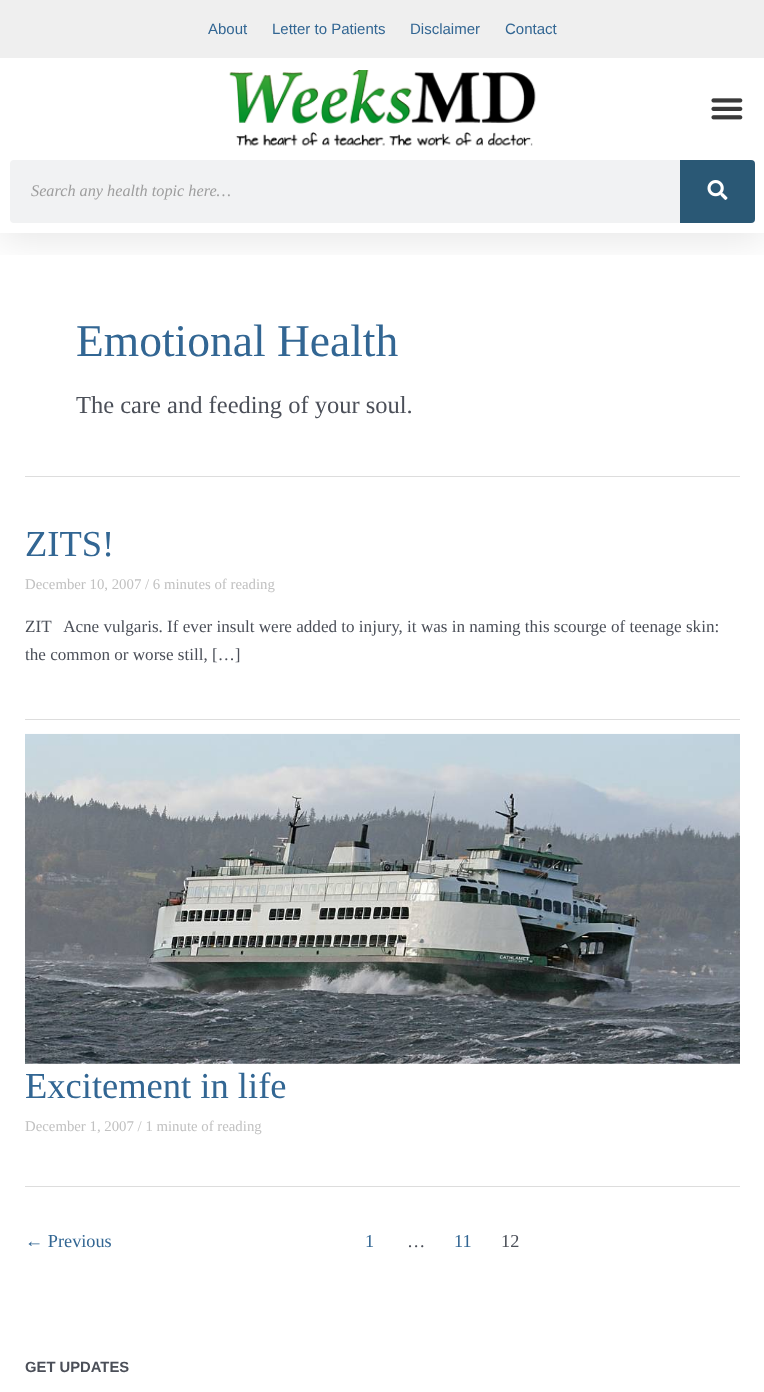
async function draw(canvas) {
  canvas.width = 764
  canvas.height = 1392
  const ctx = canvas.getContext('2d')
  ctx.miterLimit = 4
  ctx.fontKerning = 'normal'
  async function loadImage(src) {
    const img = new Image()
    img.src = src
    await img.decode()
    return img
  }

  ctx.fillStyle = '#efefef'
  ctx.fillRect(0, 0, 764, 1392)
  ctx.fillStyle = '#fff'
  ctx.fillRect(0, 233, 764, 1159)
  ctx.save()
  ctx.beginPath()
  ctx.rect(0, 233, 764, 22)
  ctx.clip()
  ctx.fillStyle = '#0000001a'
  ctx.filter = 'blur(19px)'
  ctx.beginPath()
  ctx.rect(0, 6, 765, 233)
  ctx.fill()
  ctx.filter = 'none'
  ctx.restore()
  ctx.font = '15px Liberation Sans'
  ctx.fillStyle = '#326693'
  ctx.fillText('About', 208, 34)
  ctx.fillText('Letter to Patients', 272, 34)
  ctx.fillText('Disclaimer', 410, 34)
  ctx.fillText('Contact', 505, 34)
  ctx.fillStyle = '#fff'
  ctx.fillRect(0, 58, 764, 175)
  ctx.drawImage(await loadImage('image0.png'), 229, 70, 307, 76)
  ctx.drawImage(await loadImage('image1.png'), 711, 98, 32, 22)
  ctx.fillStyle = '#f1f2f3'
  ctx.beginPath()
  ctx.roundRect(10, 160, 745, 63, 4)
  ctx.fill()
  ctx.font = 'italic 16.25px Liberation Serif'
  ctx.fillStyle = '#9e9e9e'
  ctx.fillText('Search any health topic here…', 31, 196)
  ctx.fillStyle = '#2a5875'
  ctx.beginPath()
  ctx.roundRect(680, 160, 75, 63, [0, 4, 4, 0])
  ctx.fill()
  ctx.drawImage(await loadImage('image2.png'), 707, 180, 21, 20)
  ctx.fillStyle = '#ddd'
  ctx.fillRect(25, 476, 715, 1)
  ctx.font = '45.5px Liberation Serif'
  ctx.fillStyle = '#326693'
  ctx.fillText('Emotional Health', 76, 356)
  ctx.font = '24.5px Liberation Serif'
  ctx.fillStyle = '#4b4f58'
  ctx.fillText('The care and feeding of your soul.', 76, 413)
  ctx.fillStyle = '#ddd'
  ctx.fillRect(25, 719, 715, 1)
  ctx.font = '36.5px Liberation Serif'
  ctx.fillStyle = '#326693'
  ctx.fillText('ZITS!', 25, 556)
  ctx.font = '14.8px Liberation Serif'
  ctx.fillStyle = '#c1c1c1'
  ctx.fillText('December 10, 2007', 25, 589)
  ctx.fillText('/ 6 minutes of reading', 145, 589)
  ctx.font = '17.1px Liberation Serif'
  ctx.fillStyle = '#4b4f58'
  ctx.fillText('ZIT   Acne vulgaris. If ever insult were added to injury, it was in naming this scourge of teenage skin:', 25, 632)
  ctx.fillText('the common or worse still, […]', 25, 660)
  ctx.fillStyle = '#ddd'
  ctx.fillRect(25, 1186, 715, 1)
  ctx.drawImage(await loadImage('image3.png'), 25, 733, 715, 331)
  ctx.font = '36.5px Liberation Serif'
  ctx.fillStyle = '#326693'
  ctx.fillText('Excitement in life', 25, 1098)
  ctx.font = '14.8px Liberation Serif'
  ctx.fillStyle = '#c1c1c1'
  ctx.fillText('December 1, 2007 / 1 minute of reading', 25, 1131)
  ctx.font = '18.25px Liberation Serif'
  ctx.fillStyle = '#326693'
  ctx.fillText('← Previous', 25, 1247)
  ctx.fillText('1', 365, 1247)
  ctx.fillStyle = '#4b4f58'
  ctx.fillText('…', 407, 1247)
  ctx.fillStyle = '#326693'
  ctx.fillText('11', 454, 1247)
  ctx.fillStyle = '#4b4f58'
  ctx.fillText('12', 501, 1247)
  ctx.font = 'bold 14.8px Liberation Sans'
  ctx.fillText('GET UPDATES', 25, 1372)
}

draw(document.querySelector('canvas'))
